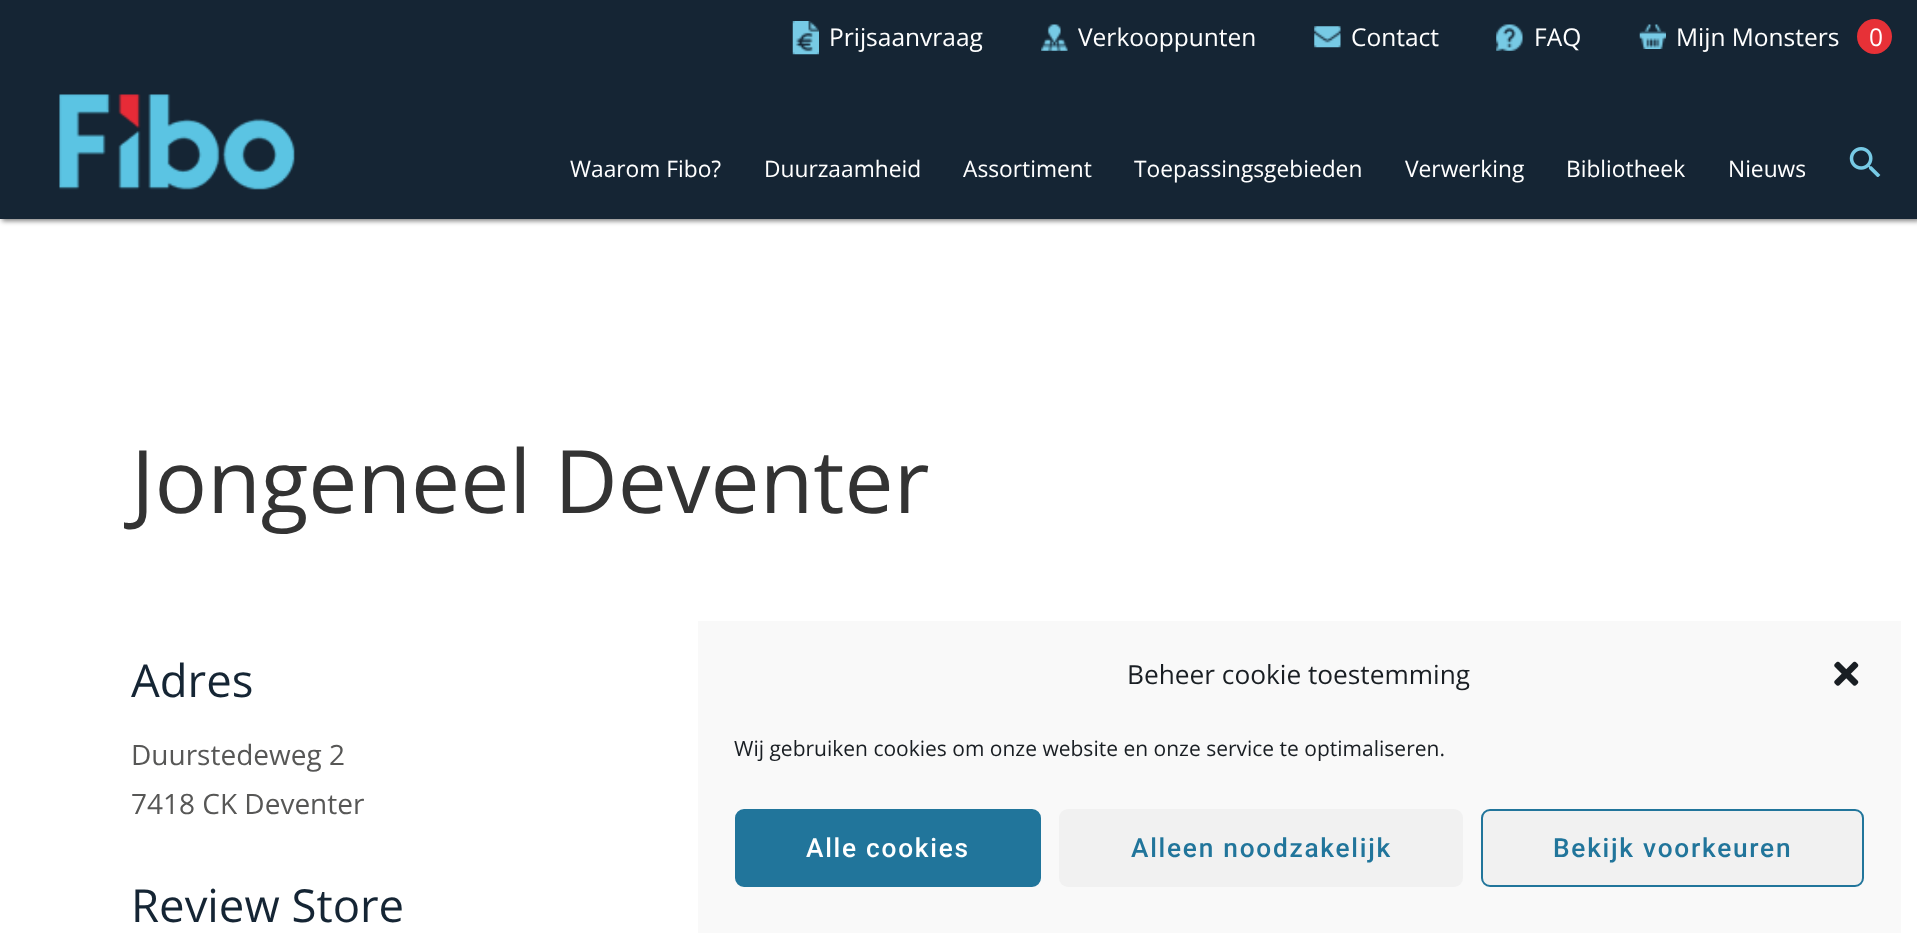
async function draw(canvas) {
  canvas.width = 1917
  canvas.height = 950
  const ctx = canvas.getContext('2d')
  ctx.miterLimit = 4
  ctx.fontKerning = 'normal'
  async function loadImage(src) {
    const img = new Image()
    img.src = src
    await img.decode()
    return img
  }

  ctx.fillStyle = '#fff'
  ctx.fillRect(0, 0, 1917, 950)
  ctx.fillStyle = '#00000080'
  ctx.filter = 'blur(2.5px)'
  ctx.beginPath()
  ctx.rect(2, 2, 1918, 219)
  ctx.fill()
  ctx.filter = 'none'
  ctx.fillStyle = '#152534'
  ctx.fillRect(0, 0, 1917, 219)
  ctx.drawImage(await loadImage('image0.png'), 792, 21, 27, 34)
  ctx.font = '24.5px Open Sans'
  ctx.fillStyle = '#fff'
  ctx.fillText('Prijsaanvraag', 829, 46)
  ctx.drawImage(await loadImage('image1.png'), 1041, 24, 27, 27)
  ctx.fillText('Verkooppunten', 1078, 46)
  ctx.drawImage(await loadImage('image2.png'), 1314, 26, 27, 22)
  ctx.fillText('Contact', 1351, 46)
  ctx.drawImage(await loadImage('image3.png'), 1496, 24, 27, 27)
  ctx.fillText('FAQ', 1534, 46)
  ctx.drawImage(await loadImage('image4.png'), 1639, 24, 27, 25)
  ctx.fillText('Mijn Monsters', 1676, 46)
  ctx.fillStyle = '#e73137'
  ctx.beginPath()
  ctx.arc(1874.5, 36.5, 17.5, 0, 2 * Math.PI)
  ctx.fill()
  ctx.fillStyle = '#fff'
  ctx.fillText('0', 1869, 46)
  ctx.drawImage(await loadImage('image5.png'), 59, 94, 236, 96)
  ctx.font = '22.75px Open Sans'
  ctx.fillText('Waarom Fibo?', 570, 177)
  ctx.fillText('Duurzaamheid', 764, 177)
  ctx.fillText('Assortiment', 963, 177)
  ctx.fillText('Toepassingsgebieden', 1134, 177)
  ctx.fillText('Verwerking', 1405, 177)
  ctx.fillText('Bibliotheek', 1566, 177)
  ctx.fillText('Nieuws', 1728, 177)
  ctx.drawImage(await loadImage('image6.png'), 1849, 147, 32, 30)
  ctx.font = '87.5px Open Sans'
  ctx.fillStyle = '#333'
  ctx.fillText('Jongeneel Deventer', 131, 513)
  ctx.font = '45.5px Open Sans'
  ctx.fillStyle = '#152534'
  ctx.fillText('Adres', 131, 697)
  ctx.font = '28px Open Sans'
  ctx.fillStyle = '#575756'
  ctx.fillText('Duurstedeweg 2', 131, 765)
  ctx.fillText('7418 CK Deventer', 131, 814)
  ctx.font = '45.5px Open Sans'
  ctx.fillStyle = '#152534'
  ctx.fillText('Review Store', 131, 922)
  ctx.fillStyle = '#f9f9f9'
  ctx.fillRect(698, 621, 1203, 312)
  ctx.font = '26.25px Open Sans'
  ctx.fillStyle = '#191e23'
  ctx.fillText('Beheer cookie toestemming', 1127, 684)
  ctx.drawImage(await loadImage('image7.png'), 1834, 661, 25, 25)
  ctx.font = '21px Open Sans'
  ctx.fillText('Wij gebruiken cookies om onze website en onze service te optimaliseren.', 734, 756)
  ctx.fillStyle = '#21759b'
  ctx.beginPath()
  ctx.roundRect(736, 810, 304, 76, 8)
  ctx.fill()
  ctx.strokeStyle = '#21759b'
  ctx.lineWidth = 2
  ctx.stroke()
  ctx.letterSpacing = '1.75px'
  ctx.font = '500 26.25px Roboto'
  ctx.fillStyle = '#fff'
  ctx.fillText('Alle cookies', 806, 857)
  ctx.fillStyle = '#f1f1f1'
  ctx.beginPath()
  ctx.roundRect(1059, 809, 404, 78, 9)
  ctx.fill()
  ctx.fillStyle = '#21759b'
  ctx.fillText('Alleen noodzakelijk', 1131, 857)
  ctx.fillStyle = '#f1f1f1'
  ctx.beginPath()
  ctx.roundRect(1482, 810, 381, 76, 8)
  ctx.fill()
  ctx.stroke()
  ctx.fillStyle = '#21759b'
  ctx.fillText('Bekijk voorkeuren', 1553, 857)
}

draw(document.querySelector('canvas'))
